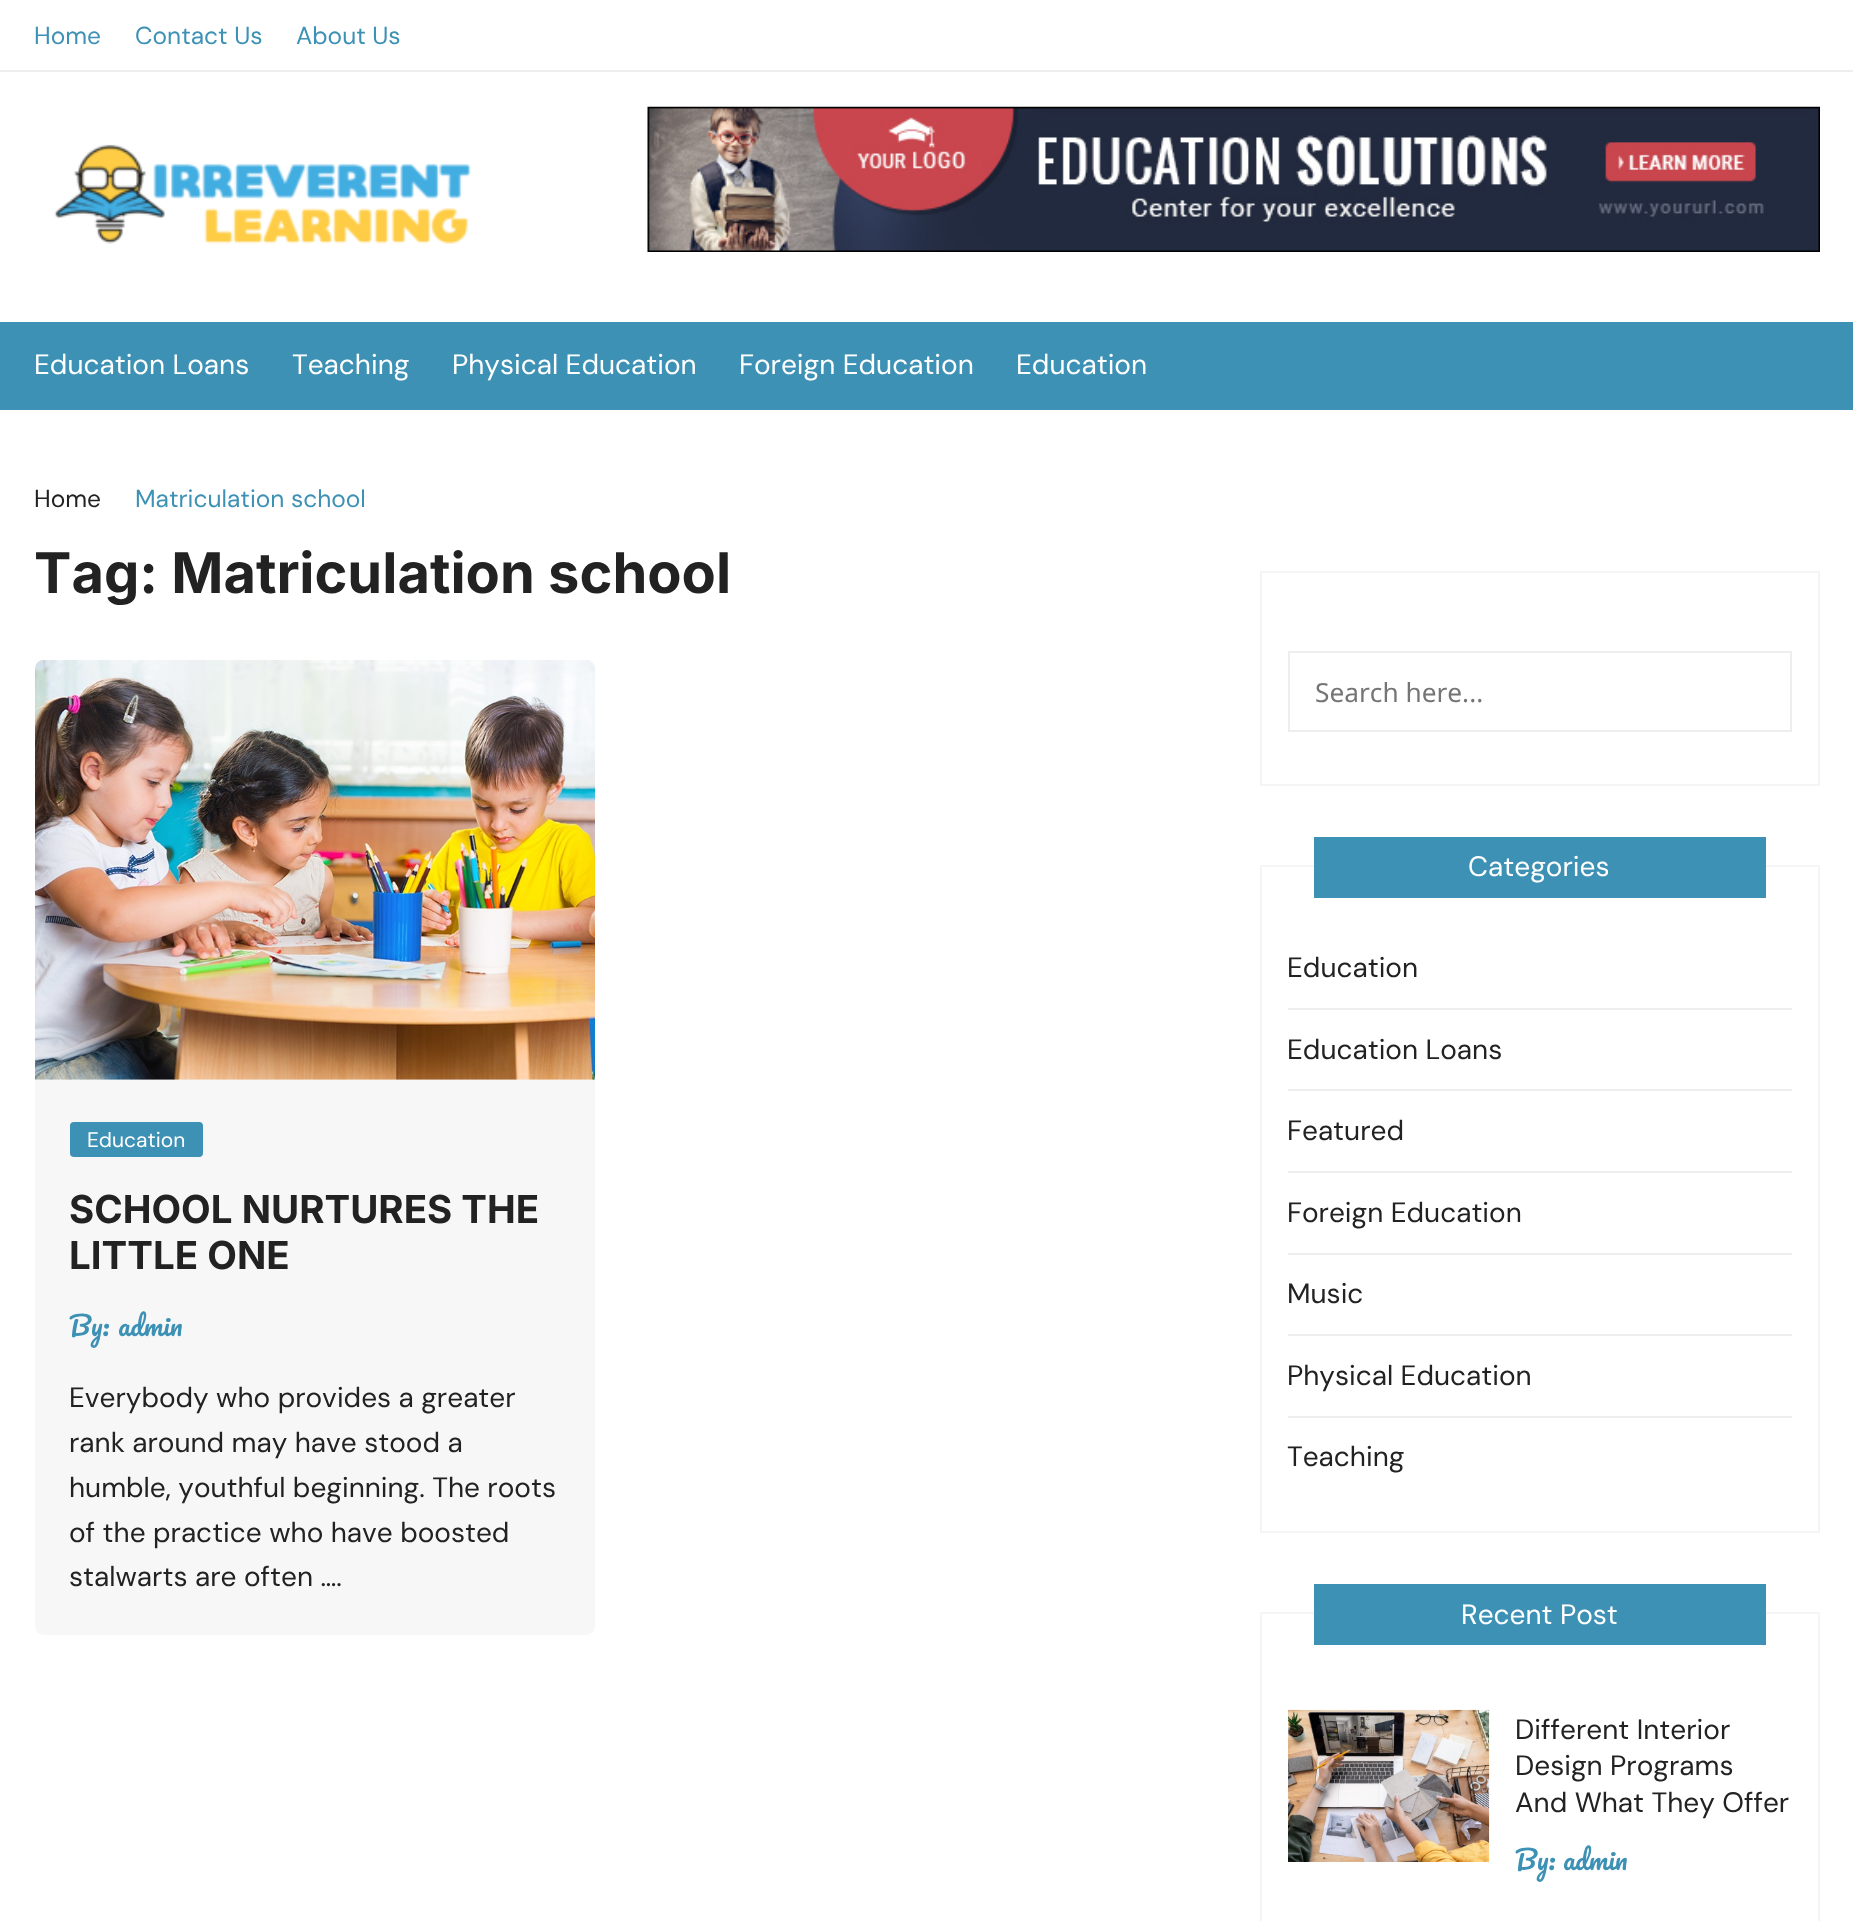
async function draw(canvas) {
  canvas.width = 1853
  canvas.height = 1921
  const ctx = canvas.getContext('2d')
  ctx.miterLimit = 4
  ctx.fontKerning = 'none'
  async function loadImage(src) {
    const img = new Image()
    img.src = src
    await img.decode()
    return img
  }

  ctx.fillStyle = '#fff'
  ctx.fillRect(0, 0, 1853, 1921)
  ctx.fillStyle = '#eee'
  ctx.fillRect(0, 70, 1853, 2)
  ctx.font = '24.5px DM Sans'
  ctx.fillStyle = '#3d91b5'
  ctx.fillText('Home', 34, 44)
  ctx.fillText('Contact Us', 135, 44)
  ctx.fillText('About Us', 296, 44)
  ctx.drawImage(await loadImage('image0.png'), 54, 144, 417, 100)
  ctx.drawImage(await loadImage('image1.png'), 647, 106, 1173, 146)
  ctx.fillRect(0, 322, 1853, 88)
  ctx.font = '28px DM Sans'
  ctx.fillStyle = '#fff'
  ctx.fillText('Education Loans', 34, 374)
  ctx.fillText('Teaching', 292, 374)
  ctx.fillText('Physical Education', 452, 374)
  ctx.fillText('Foreign Education', 739, 374)
  ctx.fillText('Education', 1016, 374)
  ctx.font = '24.5px DM Sans'
  ctx.fillStyle = '#222'
  ctx.fillText('Home', 34, 507)
  ctx.fillStyle = '#3d91b5'
  ctx.fillText('Matriculation school', 135, 507)
  ctx.font = 'bold 56px Inter'
  ctx.fillStyle = '#222'
  ctx.fillText('Tag: Matriculation school', 34, 593)
  ctx.fillStyle = '#f5f5f5'
  ctx.beginPath()
  ctx.roundRect(35, 660, 560, 420, [9, 9, 0, 0])
  ctx.fill()
  ctx.drawImage(await loadImage('image2.png'), 35, 660, 560, 420)
  ctx.fillStyle = '#f7f7f7'
  ctx.beginPath()
  ctx.roundRect(35, 1080, 560, 555, [0, 0, 9, 9])
  ctx.fill()
  ctx.fillStyle = '#3d91b5'
  ctx.beginPath()
  ctx.roundRect(70, 1122, 133, 35, 4)
  ctx.fill()
  ctx.font = '21px DM Sans'
  ctx.fillStyle = '#fff'
  ctx.fillText('Education', 87, 1147)
  ctx.font = 'bold 38.5px Inter'
  ctx.fillStyle = '#222'
  ctx.fillText('SCHOOL NURTURES THE', 69, 1223)
  ctx.fillText('LITTLE ONE', 69, 1269)
  ctx.font = '26.25px Pacifico'
  ctx.fillStyle = '#3d91b5'
  ctx.fillText('By:', 69, 1336)
  ctx.fillText('admin', 118, 1336)
  ctx.font = '28px DM Sans'
  ctx.fillStyle = '#222'
  ctx.fillText('Everybody who provides a greater', 69, 1407)
  ctx.fillText('rank around may have stood a', 69, 1452)
  ctx.fillText('humble, youthful beginning. The roots', 69, 1497)
  ctx.fillText('of the practice who have boosted', 69, 1542)
  ctx.fillText('stalwarts are often ….', 69, 1586)
  ctx.strokeStyle = '#f5f5f5'
  ctx.lineWidth = 2
  ctx.strokeRect(1261, 572, 558, 213)
  ctx.strokeStyle = '#eee'
  ctx.strokeRect(1289, 652, 502, 79)
  ctx.font = '26.25px Noto Sans'
  ctx.fillStyle = '#757575'
  ctx.fillText('Search here...', 1315, 702)
  ctx.strokeStyle = '#f5f5f5'
  ctx.strokeRect(1261, 866, 558, 666)
  ctx.fillStyle = '#3d91b5'
  ctx.fillRect(1314, 837, 452, 61)
  ctx.font = '28px DM Sans'
  ctx.fillStyle = '#fff'
  ctx.fillText('Categories', 1468, 876)
  ctx.fillStyle = '#eee'
  ctx.fillRect(1288, 1008, 504, 2)
  ctx.fillStyle = '#222'
  ctx.fillText('Education', 1287, 977)
  ctx.fillStyle = '#eee'
  ctx.fillRect(1288, 1089, 504, 2)
  ctx.fillStyle = '#222'
  ctx.fillText('Education Loans', 1287, 1059)
  ctx.fillStyle = '#eee'
  ctx.fillRect(1288, 1171, 504, 2)
  ctx.fillStyle = '#222'
  ctx.fillText('Featured', 1287, 1140)
  ctx.fillStyle = '#eee'
  ctx.fillRect(1288, 1253, 504, 2)
  ctx.fillStyle = '#222'
  ctx.fillText('Foreign Education', 1287, 1222)
  ctx.fillStyle = '#eee'
  ctx.fillRect(1288, 1334, 504, 2)
  ctx.fillStyle = '#222'
  ctx.fillText('Music', 1287, 1303)
  ctx.fillStyle = '#eee'
  ctx.fillRect(1288, 1416, 504, 2)
  ctx.fillStyle = '#222'
  ctx.fillText('Physical Education', 1287, 1385)
  ctx.fillText('Teaching', 1287, 1466)
  ctx.strokeRect(1261, 1613, 558, 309)
  ctx.fillStyle = '#3d91b5'
  ctx.fillRect(1314, 1584, 452, 61)
  ctx.fillStyle = '#fff'
  ctx.fillText('Recent Post', 1461, 1624)
  ctx.drawImage(await loadImage('image3.png'), 1288, 1709, 202, 153)
  ctx.fillStyle = '#222'
  ctx.fillText('Different Interior', 1515, 1739)
  ctx.fillText('Design Programs', 1515, 1775)
  ctx.fillText('And What They Offer', 1515, 1812)
  ctx.font = '26.25px Pacifico'
  ctx.fillStyle = '#3d91b5'
  ctx.fillText('By:', 1515, 1870)
  ctx.fillText('admin', 1563, 1870)
}

draw(document.querySelector('canvas'))
